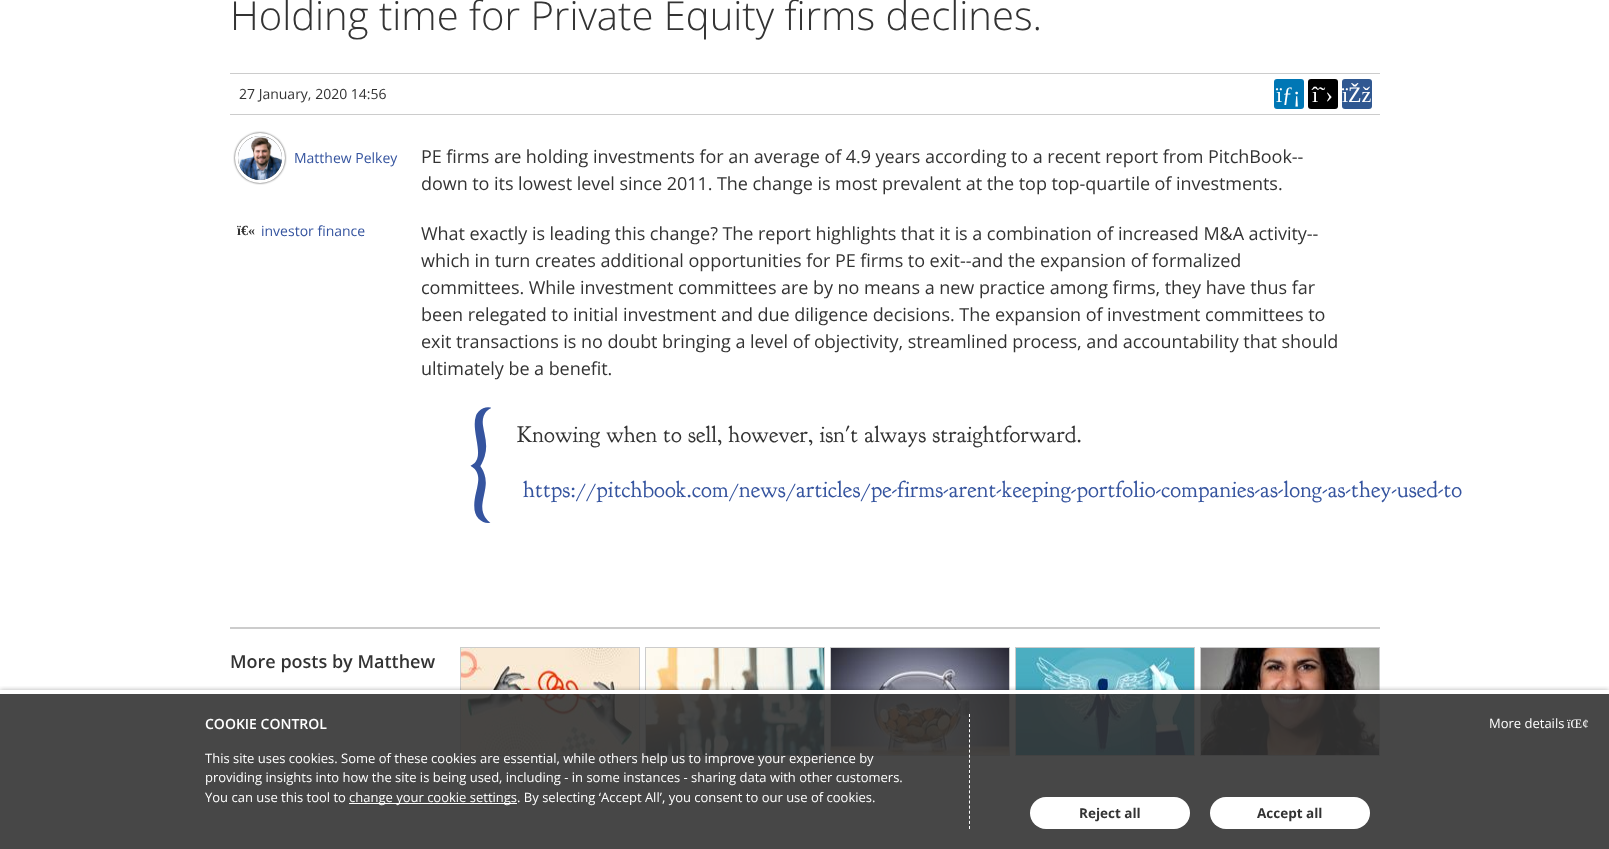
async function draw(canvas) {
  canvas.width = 1609
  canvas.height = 849
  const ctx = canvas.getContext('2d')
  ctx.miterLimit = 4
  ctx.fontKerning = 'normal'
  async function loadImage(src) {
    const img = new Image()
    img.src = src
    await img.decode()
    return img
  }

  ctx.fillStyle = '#fff'
  ctx.fillRect(0, 0, 1609, 849)
  ctx.font = '300 40px Open Sans'
  ctx.fillStyle = '#333'
  ctx.fillText('Holding time for Private Equity firms declines.', 230, 30)
  ctx.fillStyle = '#ccc'
  ctx.fillRect(230, 73, 1150, 1)
  ctx.fillRect(230, 114, 1150, 1)
  ctx.font = '14px Open Sans'
  ctx.fillStyle = '#333'
  ctx.fillText('27 January, 2020 14:56', 239, 99)
  ctx.fillStyle = '#0077b5'
  ctx.beginPath()
  ctx.roundRect(1274, 79, 30, 30, 3)
  ctx.fill()
  ctx.font = '22px Liberation Serif'
  ctx.fillStyle = '#fff'
  ctx.fillText('ïƒ¡', 1276, 102)
  ctx.fillStyle = '#000'
  ctx.beginPath()
  ctx.roundRect(1308, 79, 30, 30, 3)
  ctx.fill()
  ctx.fillStyle = '#fff'
  ctx.fillText('î˜›', 1312, 102)
  ctx.fillStyle = '#305891'
  ctx.beginPath()
  ctx.roundRect(1342, 79, 30, 30, 3)
  ctx.fill()
  ctx.fillStyle = '#fff'
  ctx.fillText('ïŽž', 1342, 102)
  ctx.fillStyle = '#000000cc'
  ctx.filter = 'blur(1px)'
  ctx.beginPath()
  ctx.roundRect(235, 133, 50, 50, 25)
  ctx.fill()
  ctx.filter = 'none'
  ctx.beginPath()
  ctx.arc(260, 158, 23.5, 0, 2 * Math.PI)
  ctx.strokeStyle = '#fff'
  ctx.lineWidth = 3
  ctx.stroke()
  ctx.drawImage(await loadImage('image0.png'), 238, 136, 44, 44)
  ctx.font = '14px Open Sans'
  ctx.fillStyle = '#35549f'
  ctx.fillText('Matthew Pelkey', 294, 163)
  ctx.font = 'bold 14px Liberation Serif'
  ctx.fillStyle = '#333'
  ctx.fillText('ï€«', 237, 235)
  ctx.font = '14px Open Sans'
  ctx.fillStyle = '#35549f'
  ctx.fillText('investor finance', 261, 236)
  ctx.letterSpacing = '-0.05px'
  ctx.font = '18px Open Sans'
  ctx.fillStyle = '#333'
  ctx.fillText('PE firms are holding investments for an average of 4.9 years according to a recent report from PitchBook--', 421, 163)
  ctx.fillText('down to its lowest level since 2011. The change is most prevalent at the top top-quartile of investments.', 421, 190)
  ctx.fillText('What exactly is leading this change? The report highlights that it is a combination of increased M&A activity--', 421, 240)
  ctx.fillText('which in turn creates additional opportunities for PE firms to exit--and the expansion of formalized', 421, 267)
  ctx.fillText('committees. While investment committees are by no means a new practice among firms, they have thus far', 421, 294)
  ctx.fillText('been relegated to initial investment and due diligence decisions. The expansion of investment committees to', 421, 321)
  ctx.fillText('exit transactions is no doubt bringing a level of objectivity, streamlined process, and accountability that should', 421, 348)
  ctx.fillText('ultimately be a benefit.', 421, 375)
  ctx.letterSpacing = '0px'
  ctx.font = '126px "Goudy Bookletter 1911"'
  ctx.fillStyle = '#35549f'
  ctx.fillText('{', 465, 498)
  ctx.letterSpacing = '0.23px'
  ctx.font = '23px "Goudy Bookletter 1911"'
  ctx.fillStyle = '#333'
  ctx.fillText('Knowing when to sell, however, isn\'t always straightforward.', 517, 442)
  ctx.fillStyle = '#35549f'
  ctx.fillText('https://pitchbook.com/news/articles/pe-firms-arent-keeping-portfolio-companies-as-long-as-they-used-to', 523, 497)
  ctx.fillStyle = '#ccc'
  ctx.fillRect(230, 627, 1150, 2)
  ctx.letterSpacing = '0px'
  ctx.font = '600 18px Open Sans'
  ctx.fillStyle = '#333'
  ctx.fillText('More posts by Matthew', 230, 668)
  ctx.strokeStyle = '#ccc'
  ctx.lineWidth = 1
  ctx.strokeRect(460.5, 647.5, 179, 108)
  ctx.drawImage(await loadImage('image1.png'), 461, 648, 178, 107)
  ctx.strokeRect(645.5, 647.5, 179, 108)
  ctx.drawImage(await loadImage('image2.png'), 646, 648, 178, 107)
  ctx.strokeRect(830.5, 647.5, 179, 108)
  ctx.drawImage(await loadImage('image3.png'), 831, 648, 178, 107)
  ctx.strokeRect(1015.5, 647.5, 179, 108)
  ctx.drawImage(await loadImage('image4.png'), 1016, 648, 178, 107)
  ctx.strokeRect(1200.5, 647.5, 179, 108)
  ctx.drawImage(await loadImage('image5.png'), 1201, 648, 178, 107)
  ctx.save()
  ctx.beginPath()
  ctx.rect(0, 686, 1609, 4)
  ctx.clip()
  ctx.fillStyle = '#0000004d'
  ctx.filter = 'blur(2.5px)'
  ctx.beginPath()
  ctx.rect(0, 690, 1609, 159)
  ctx.fill()
  ctx.filter = 'none'
  ctx.restore()
  ctx.fillStyle = '#333333e6'
  ctx.fillRect(0, 694, 1609, 155)
  ctx.fillStyle = '#fff'
  ctx.fillRect(460, 690, 920, 4)
  ctx.beginPath()
  ctx.moveTo(969.5, 714)
  ctx.lineTo(969.5, 829)
  ctx.strokeStyle = '#fff'
  ctx.setLineDash([3, 2.09])
  ctx.stroke()
  ctx.font = '600 14px Open Sans'
  ctx.fillText('COOKIE CONTROL', 205, 729)
  ctx.font = '13px Open Sans'
  ctx.fillText('This site uses cookies. Some of these cookies are essential, while others help us to improve your experience by', 205, 763)
  ctx.fillText('providing insights into how the site is being used, including - in some instances - sharing data with other customers.', 205, 782)
  ctx.fillText('You can use this tool to', 205, 802)
  ctx.fillRect(349, 803, 168, 1)
  ctx.fillText('change your cookie settings. By selecting ‘Accept All’, you consent to our use of cookies.', 349, 802)
  ctx.fillText('More details', 1489, 728)
  ctx.font = '13px Liberation Serif'
  ctx.fillText('ïŒ¢', 1567, 728)
  ctx.beginPath()
  ctx.roundRect(1030, 797, 160, 32, 16)
  ctx.fill()
  ctx.font = 'bold 13.5px Open Sans'
  ctx.fillStyle = '#333'
  ctx.fillText('Reject all', 1079, 818)
  ctx.fillStyle = '#fff'
  ctx.beginPath()
  ctx.roundRect(1210, 797, 160, 32, 16)
  ctx.fill()
  ctx.fillStyle = '#333'
  ctx.fillText('Accept all', 1257, 818)
}

draw(document.querySelector('canvas'))
